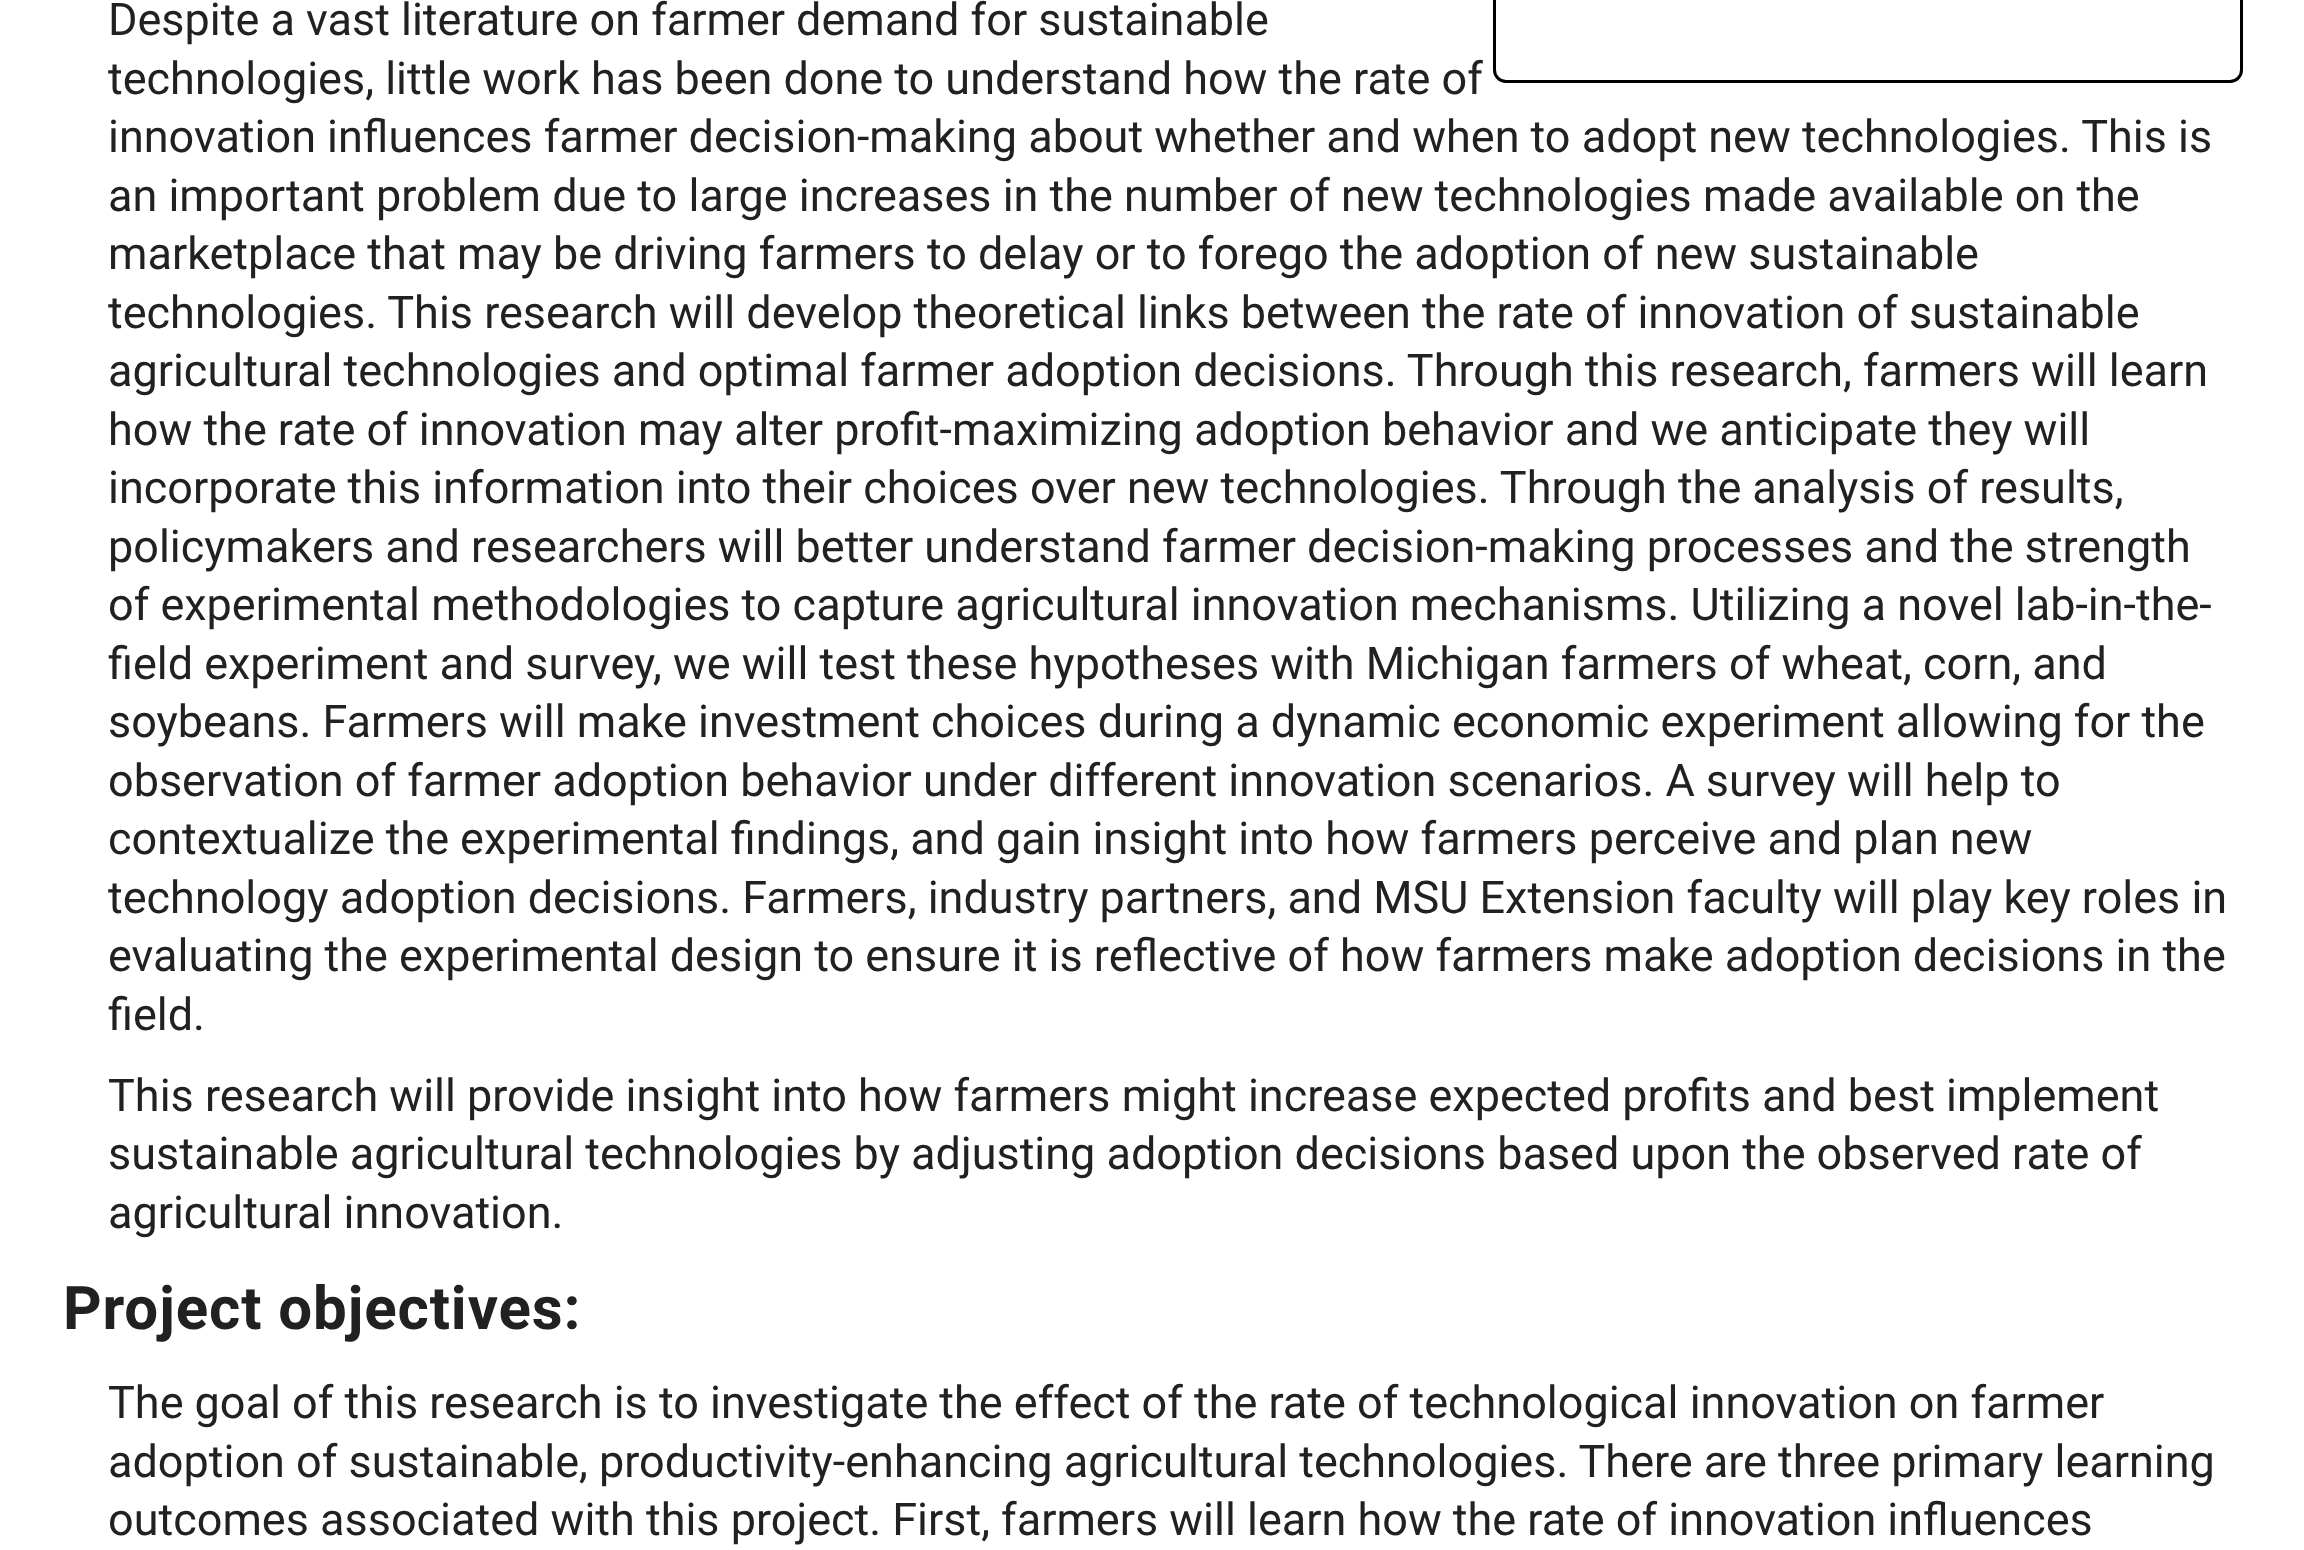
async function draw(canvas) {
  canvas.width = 2304
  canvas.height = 1550
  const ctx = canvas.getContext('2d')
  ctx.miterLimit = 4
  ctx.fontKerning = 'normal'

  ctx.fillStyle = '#fff'
  ctx.fillRect(0, 0, 2304, 1550)
  ctx.beginPath()
  ctx.roundRect(1494.5, -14.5, 747, 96, 11.5)
  ctx.strokeStyle = '#000'
  ctx.lineWidth = 3
  ctx.stroke()
  ctx.font = '45px Roboto'
  ctx.fillStyle = '#212121'
  ctx.fillText('Despite a vast literature on farmer demand for sustainable', 108, 35)
  ctx.fillText('technologies, little work has been done to understand how the rate of', 108, 94)
  ctx.fillText('innovation influences farmer decision-making about whether and when to adopt new technologies. This is', 108, 152)
  ctx.fillText('an important problem due to large increases in the number of new technologies made available on the', 108, 211)
  ctx.fillText('marketplace that may be driving farmers to delay or to forego the adoption of new sustainable', 108, 269)
  ctx.fillText('technologies. This research will develop theoretical links between the rate of innovation of sustainable', 108, 328)
  ctx.fillText('agricultural technologies and optimal farmer adoption decisions. Through this research, farmers will learn', 108, 386)
  ctx.fillText('how the rate of innovation may alter profit-maximizing adoption behavior and we anticipate they will', 108, 445)
  ctx.fillText('incorporate this information into their choices over new technologies. Through the analysis of results,', 108, 503)
  ctx.fillText('policymakers and researchers will better understand farmer decision-making processes and the strength', 108, 562)
  ctx.fillText('of experimental methodologies to capture agricultural innovation mechanisms. Utilizing a novel lab-in-the-', 108, 620)
  ctx.fillText('field experiment and survey, we will test these hypotheses with Michigan farmers of wheat, corn, and', 108, 679)
  ctx.fillText('soybeans. Farmers will make investment choices during a dynamic economic experiment allowing for the', 108, 737)
  ctx.fillText('observation of farmer adoption behavior under different innovation scenarios. A survey will help to', 108, 796)
  ctx.fillText('contextualize the experimental findings, and gain insight into how farmers perceive and plan new', 108, 854)
  ctx.fillText('technology adoption decisions. Farmers, industry partners, and MSU Extension faculty will play key roles in', 108, 913)
  ctx.fillText('evaluating the experimental design to ensure it is reflective of how farmers make adoption decisions in the', 108, 971)
  ctx.fillText('field.', 108, 1030)
  ctx.fillText('This research will provide insight into how farmers might increase expected profits and best implement', 108, 1111)
  ctx.fillText('sustainable agricultural technologies by adjusting adoption decisions based upon the observed rate of', 108, 1169)
  ctx.fillText('agricultural innovation.', 108, 1228)
  ctx.letterSpacing = '0.9px'
  ctx.font = 'bold 60px Roboto'
  ctx.fillText('Project objectives:', 63, 1329)
  ctx.letterSpacing = '0px'
  ctx.font = '45px Roboto'
  ctx.fillText('The goal of this research is to investigate the effect of the rate of technological innovation on farmer', 108, 1418)
  ctx.fillText('adoption of sustainable, productivity-enhancing agricultural technologies. There are three primary learning', 108, 1477)
  ctx.fillText('outcomes associated with this project. First, farmers will learn how the rate of innovation influences', 108, 1535)
}

draw(document.querySelector('canvas'))
